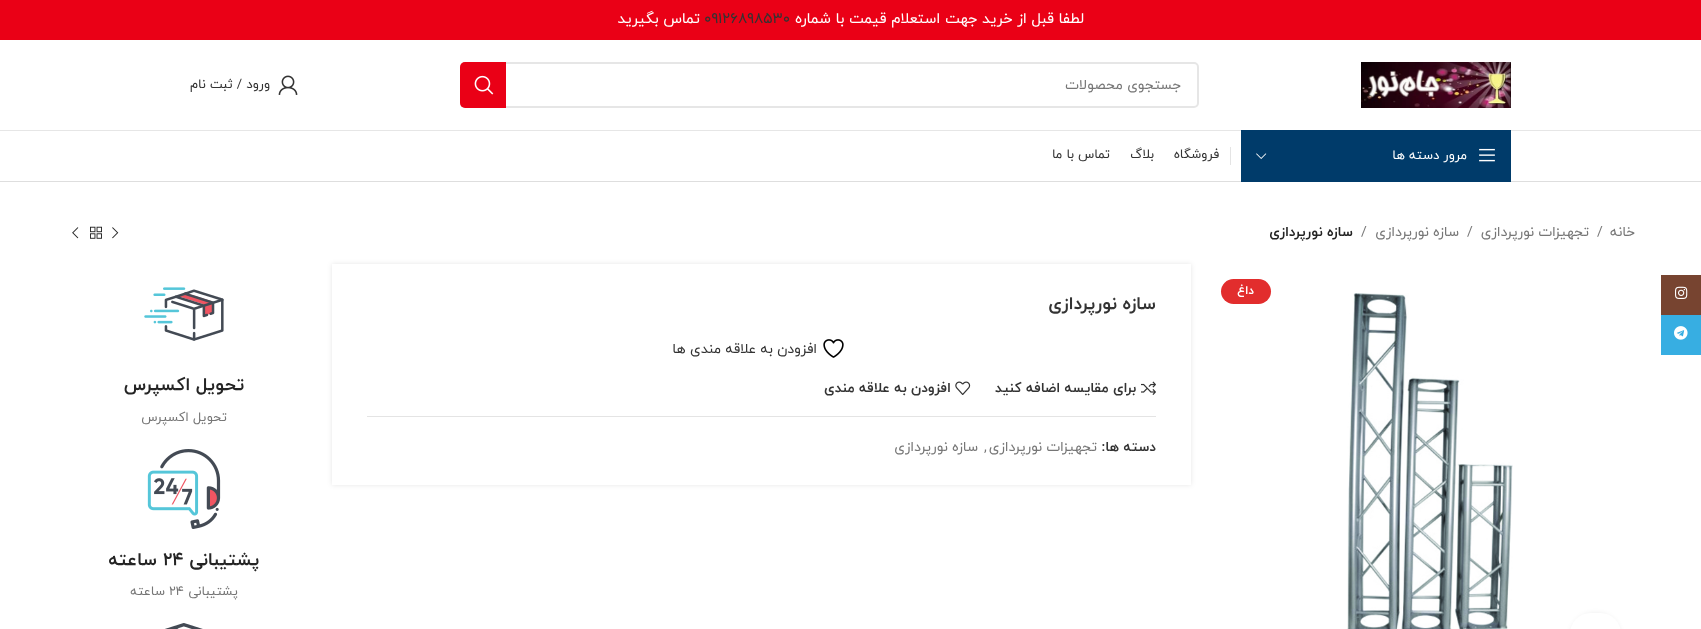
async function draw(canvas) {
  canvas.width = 1701
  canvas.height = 629
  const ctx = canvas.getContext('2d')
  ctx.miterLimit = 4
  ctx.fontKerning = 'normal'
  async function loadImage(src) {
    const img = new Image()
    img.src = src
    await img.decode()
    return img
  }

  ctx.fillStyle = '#fff'
  ctx.fillRect(0, 0, 1701, 629)
  ctx.fillStyle = '#774430'
  ctx.fillRect(1661, 275, 40, 40)
  ctx.drawImage(await loadImage('image0.png'), 1675, 286, 13, 13)
  ctx.fillStyle = '#37aee2'
  ctx.fillRect(1661, 315, 40, 40)
  ctx.drawImage(await loadImage('image1.png'), 1674, 326, 14, 14)
  ctx.fillStyle = '#ea0016'
  ctx.fillRect(0, 0, 1701, 40)
  ctx.direction = 'rtl'
  ctx.font = '15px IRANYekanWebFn'
  ctx.fillStyle = '#fff'
  ctx.fillText('لطفا قبل از خرید جهت استعلام قیمت با شماره', 1084, 23)
  ctx.direction = 'ltr'
  ctx.fillStyle = '#333'
  ctx.fillText('09126898530', 704, 23)
  ctx.direction = 'rtl'
  ctx.fillStyle = '#fff'
  ctx.fillText('تماس بگیرید', 700, 23)
  ctx.fillStyle = '#e6e6e6'
  ctx.fillRect(0, 130, 1701, 1)
  ctx.drawImage(await loadImage('image2.png'), 1361, 62, 150, 46)
  ctx.beginPath()
  ctx.roundRect(461, 63, 737, 44, 4)
  ctx.strokeStyle = '#e6e6e6'
  ctx.lineWidth = 2
  ctx.stroke()
  ctx.font = '14px IRANYekanWebFn'
  ctx.fillStyle = '#767676'
  ctx.fillText('جستجوی محصولات', 1181, 89)
  ctx.fillStyle = '#ea0016'
  ctx.beginPath()
  ctx.roundRect(460, 62, 46, 46, [5, 0, 0, 5])
  ctx.fill()
  ctx.drawImage(await loadImage('image3.png'), 474, 75, 20, 20)
  ctx.drawImage(await loadImage('image4.png'), 278, 75, 20, 20)
  ctx.font = '13px IRANYekanWebFn'
  ctx.fillStyle = '#333'
  ctx.fillText('ورود / ثبت نام', 270, 88)
  ctx.fillStyle = '#dedede'
  ctx.fillRect(0, 181, 1701, 1)
  ctx.fillStyle = '#003b6a'
  ctx.fillRect(1241, 130, 270, 52)
  ctx.drawImage(await loadImage('image5.png'), 1479, 148, 16, 14)
  ctx.fillStyle = '#fff'
  ctx.fillText('مرور دسته ها', 1467, 159)
  ctx.drawImage(await loadImage('image6.png'), 1256, 153, 11, 6)
  ctx.fillStyle = '#e4e4e4'
  ctx.fillRect(1230, 147, 1, 18)
  ctx.fillStyle = '#333'
  ctx.fillText('فروشگاه', 1219, 158)
  ctx.fillText('بلاگ', 1154, 158)
  ctx.fillText('تماس با ما', 1110, 158)
  ctx.font = '14px IRANYekanWebFn'
  ctx.fillStyle = '#767676'
  ctx.fillText('خانه', 1635, 236)
  ctx.direction = 'ltr'
  ctx.fillText('/', 1597, 236)
  ctx.direction = 'rtl'
  ctx.fillText('تجهیزات نورپردازی', 1589, 236)
  ctx.direction = 'ltr'
  ctx.fillText('/', 1467, 236)
  ctx.direction = 'rtl'
  ctx.fillText('سازه نورپردازی', 1459, 236)
  ctx.direction = 'ltr'
  ctx.fillText('/', 1361, 236)
  ctx.direction = 'rtl'
  ctx.font = 'bold 14px IRANYekanWebFn'
  ctx.fillStyle = '#242424'
  ctx.fillText('سازه نورپردازی', 1353, 236)
  ctx.drawImage(await loadImage('image7.png'), 112, 227, 7, 12)
  ctx.drawImage(await loadImage('image8.png'), 90, 226, 12, 13)
  ctx.drawImage(await loadImage('image9.png'), 72, 227, 7, 12)
  ctx.fillStyle = '#e22d2d'
  ctx.beginPath()
  ctx.roundRect(1221, 279, 50, 25, 12.5)
  ctx.fill()
  ctx.font = 'bold 12px IRANYekanWebFn'
  ctx.fillStyle = '#fff'
  ctx.fillText('داغ', 1254, 294)
  ctx.fillStyle = '#00000014'
  ctx.filter = 'blur(2.5px)'
  ctx.beginPath()
  ctx.roundRect(1570, 613, 51, 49, 25)
  ctx.fill()
  ctx.filter = 'none'
  ctx.fillStyle = '#fff'
  ctx.beginPath()
  ctx.roundRect(1570, 613, 51, 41, 25)
  ctx.fill()
  ctx.drawImage(await loadImage('image10.png'), 1347, 293, 166, 336)
  ctx.save()
  ctx.beginPath()
  ctx.moveTo(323, 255)
  ctx.lineTo(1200, 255)
  ctx.lineTo(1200, 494)
  ctx.lineTo(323, 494)
  ctx.closePath()
  ctx.moveTo(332, 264)
  ctx.lineTo(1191, 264)
  ctx.lineTo(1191, 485)
  ctx.lineTo(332, 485)
  ctx.closePath()
  ctx.clip('evenodd')
  ctx.fillStyle = '#0000001a'
  ctx.filter = 'blur(2.5px)'
  ctx.beginPath()
  ctx.rect(332, 264, 859, 221)
  ctx.fill()
  ctx.filter = 'none'
  ctx.restore()
  ctx.font = 'bold 18px IRANYekanWebFn'
  ctx.fillStyle = '#333'
  ctx.fillText('سازه نورپردازی', 1156, 309)
  ctx.drawImage(await loadImage('image11.png'), 823, 339, 21, 19)
  ctx.font = '14px IRANYekanWebFn'
  ctx.fillText('افزودن به علاقه مندی ها', 817, 353)
  ctx.drawImage(await loadImage('image12.png'), 1141, 381, 15, 14)
  ctx.font = 'bold 14px IRANYekanWebFn'
  ctx.fillText('برای مقایسه اضافه کنید', 1136, 392)
  ctx.drawImage(await loadImage('image13.png'), 955, 381, 16, 14)
  ctx.fillText('افزودن به علاقه مندی', 951, 392)
  ctx.fillStyle = '#e4e4e4'
  ctx.fillRect(367, 416, 789, 1)
  ctx.fillStyle = '#333'
  ctx.fillText('دسته ها:', 1156, 451)
  ctx.font = '14px IRANYekanWebFn'
  ctx.fillStyle = '#767676'
  ctx.fillText('تجهیزات نورپردازی', 1097, 451)
  ctx.direction = 'ltr'
  ctx.fillText(',', 984, 451)
  ctx.direction = 'rtl'
  ctx.fillText('سازه نورپردازی', 978, 451)
  ctx.drawImage(await loadImage('image14.png'), 144, 287, 80, 54)
  ctx.font = 'bold 18px IRANYekanWebFn'
  ctx.fillStyle = '#242424'
  ctx.fillText('تحویل اکسپرس', 244, 390)
  ctx.font = '13px IRANYekanWebFn'
  ctx.fillStyle = '#767676'
  ctx.fillText('تحویل اکسپرس', 227, 421)
  ctx.drawImage(await loadImage('image15.png'), 147, 449, 74, 80)
  ctx.font = 'bold 18px IRANYekanWebFn'
  ctx.fillStyle = '#242424'
  ctx.fillText('پشتیبانی', 259, 565)
  ctx.direction = 'ltr'
  ctx.fillText('24', 163, 565)
  ctx.direction = 'rtl'
  ctx.fillText('ساعته', 157, 565)
  ctx.font = '13px IRANYekanWebFn'
  ctx.fillStyle = '#767676'
  ctx.fillText('پشتیبانی', 238, 595)
  ctx.direction = 'ltr'
  ctx.fillText('24', 169, 595)
  ctx.direction = 'rtl'
  ctx.fillText('ساعته', 165, 595)
  ctx.drawImage(await loadImage('image16.png'), 165, 623, 38, 6)
}

draw(document.querySelector('canvas'))
